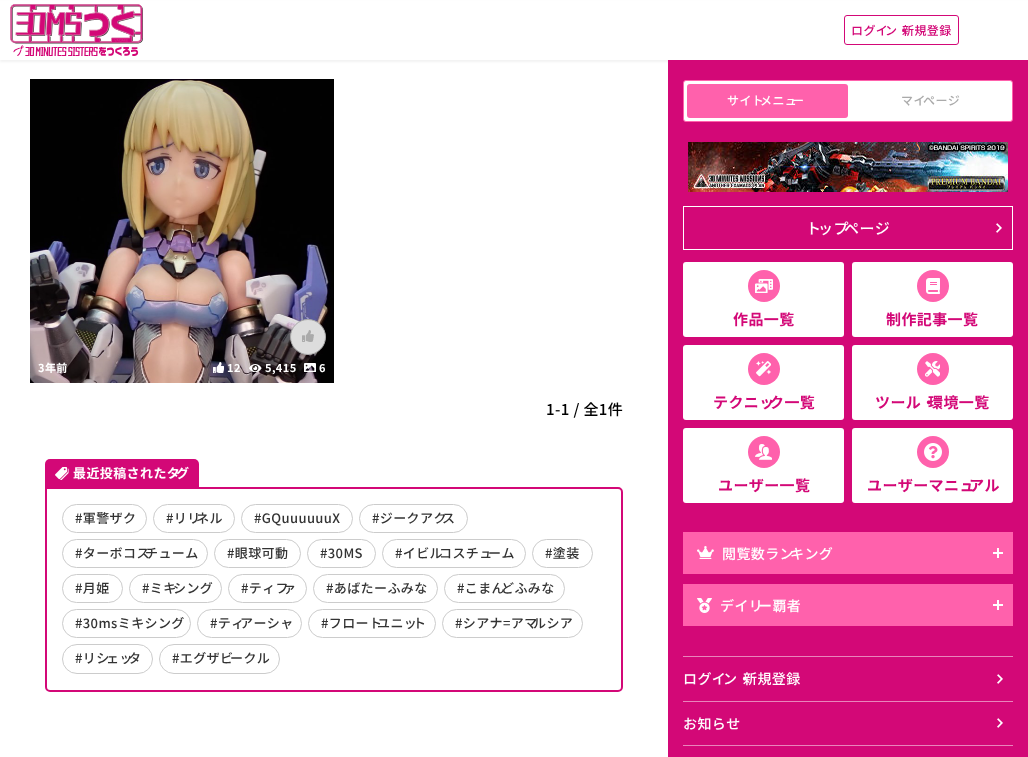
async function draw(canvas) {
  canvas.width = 1028
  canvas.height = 757
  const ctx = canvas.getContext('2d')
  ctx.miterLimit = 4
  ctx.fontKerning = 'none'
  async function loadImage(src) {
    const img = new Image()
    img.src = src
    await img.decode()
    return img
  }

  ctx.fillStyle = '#fff'
  ctx.fillRect(0, 0, 1028, 757)
  ctx.fillStyle = '#0000000d'
  ctx.filter = 'blur(1px)'
  ctx.beginPath()
  ctx.rect(0, 2, 1028, 60)
  ctx.fill()
  ctx.filter = 'none'
  ctx.fillStyle = '#fff'
  ctx.fillRect(0, 1, 1028, 59)
  ctx.drawImage(await loadImage('image0.png'), 10, 4, 133, 52)
  ctx.beginPath()
  ctx.roundRect(844.5, 15.5, 114, 29, 2.5)
  ctx.strokeStyle = '#d30877'
  ctx.stroke()
  ctx.letterSpacing = '0.4px'
  ctx.font = '500 12px Noto Sans JP'
  ctx.fillStyle = '#d30877'
  ctx.fillText('ログイ', 851, 35)
  ctx.fillText('ン・', 885, 35)
  ctx.fillText('新規登録', 902, 35)
  ctx.drawImage(await loadImage('image1.png'), 30, 79, 304, 304)
  ctx.fillStyle = '#ddd'
  ctx.beginPath()
  ctx.arc(308, 337, 17.5, 0, 2 * Math.PI)
  ctx.fill()
  ctx.strokeStyle = '#aaa'
  ctx.stroke()
  ctx.drawImage(await loadImage('image2.png'), 302, 330, 12, 12)
  ctx.font = 'bold 11px Noto Sans JP'
  ctx.fillStyle = '#fff'
  ctx.fillText('3年前', 38, 372)
  ctx.drawImage(await loadImage('image3.png'), 213, 362, 11, 11)
  ctx.fillText('12', 227, 372)
  ctx.drawImage(await loadImage('image4.png'), 249, 364, 13, 8)
  ctx.fillText('5,415', 265, 372)
  ctx.drawImage(await loadImage('image5.png'), 304, 363, 12, 9)
  ctx.fillText('6', 319, 372)
  ctx.font = '500 15px Noto Sans JP'
  ctx.fillStyle = '#000'
  ctx.fillText('1-1 / 全1件', 546, 415)
  ctx.fillStyle = '#d30877'
  ctx.beginPath()
  ctx.roundRect(45, 459, 154, 28, [5, 5, 0, 0])
  ctx.fill()
  ctx.drawImage(await loadImage('image6.png'), 55, 467, 14, 13)
  ctx.font = 'bold 13px Noto Sans JP'
  ctx.fillStyle = '#fff'
  ctx.fillText('最近投稿されたタ', 73, 478)
  ctx.fillText('グ', 176, 478)
  ctx.beginPath()
  ctx.roundRect(46, 488, 576, 203, [0, 4, 4, 4])
  ctx.strokeStyle = '#d30877'
  ctx.lineWidth = 2
  ctx.stroke()
  ctx.beginPath()
  ctx.roundRect(62.5, 504.5, 84, 28, 14)
  ctx.strokeStyle = '#ccc'
  ctx.lineWidth = 1
  ctx.stroke()
  ctx.font = '500 13px Noto Sans JP'
  ctx.fillStyle = '#333'
  ctx.fillText('#軍警ザク', 75, 523)
  ctx.beginPath()
  ctx.roundRect(153.5, 504.5, 81, 28, 14)
  ctx.stroke()
  ctx.fillText('#リリ', 166, 523)
  ctx.fillText('ネル', 196, 523)
  ctx.beginPath()
  ctx.roundRect(241.5, 504.5, 111, 28, 14)
  ctx.stroke()
  ctx.fillText('#GQuuuuuuX', 254, 523)
  ctx.beginPath()
  ctx.roundRect(359.5, 504.5, 108, 28, 14)
  ctx.stroke()
  ctx.fillText('#ジークアク', 372, 523)
  ctx.fillText('ス', 442, 523)
  ctx.beginPath()
  ctx.roundRect(62.5, 539.5, 145, 28, 14)
  ctx.stroke()
  ctx.fillText('#ターボコス', 75, 558)
  ctx.fillText('チューム', 145, 558)
  ctx.beginPath()
  ctx.roundRect(214.5, 539.5, 86, 28, 14)
  ctx.stroke()
  ctx.fillText('#眼球可動', 227, 558)
  ctx.beginPath()
  ctx.roundRect(307.5, 539.5, 68, 28, 14)
  ctx.stroke()
  ctx.fillText('#30MS', 320, 558)
  ctx.beginPath()
  ctx.roundRect(382.5, 539.5, 143, 28, 14)
  ctx.stroke()
  ctx.fillText('#イビル', 395, 558)
  ctx.fillText('コスチュ', 439, 558)
  ctx.fillText('ーム', 488, 558)
  ctx.beginPath()
  ctx.roundRect(532.5, 539.5, 60, 28, 14)
  ctx.stroke()
  ctx.fillText('#塗装', 545, 558)
  ctx.beginPath()
  ctx.roundRect(62.5, 574.5, 60, 28, 14)
  ctx.stroke()
  ctx.fillText('#月姫', 75, 593)
  ctx.beginPath()
  ctx.roundRect(129.5, 574.5, 92, 28, 14)
  ctx.stroke()
  ctx.fillText('#ミキ', 142, 593)
  ctx.fillText('シング', 173, 593)
  ctx.beginPath()
  ctx.roundRect(228.5, 574.5, 78, 28, 14)
  ctx.stroke()
  ctx.fillText('#ティフ', 241, 593)
  ctx.fillText('ァ', 283, 593)
  ctx.beginPath()
  ctx.roundRect(313.5, 574.5, 124, 28, 14)
  ctx.stroke()
  ctx.fillText('#あばたーふみな', 326, 593)
  ctx.beginPath()
  ctx.roundRect(444.5, 574.5, 120, 28, 14)
  ctx.stroke()
  ctx.fillText('#こまん', 457, 593)
  ctx.fillText('どふみな', 501, 593)
  ctx.beginPath()
  ctx.roundRect(62.5, 609.5, 128, 28, 14)
  ctx.stroke()
  ctx.font = '500 13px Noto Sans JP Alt'
  ctx.fillText('#30msミキシング', 75, 628)
  ctx.beginPath()
  ctx.roundRect(197.5, 609.5, 104, 28, 14)
  ctx.stroke()
  ctx.font = '500 13px Noto Sans JP'
  ctx.fillText('#ティ', 210, 628)
  ctx.fillText('アーシャ', 240, 628)
  ctx.beginPath()
  ctx.roundRect(308.5, 609.5, 127, 28, 14)
  ctx.stroke()
  ctx.fillText('#フロート', 321, 628)
  ctx.fillText('ユニッ', 377, 628)
  ctx.fillText('ト', 413, 628)
  ctx.beginPath()
  ctx.roundRect(442.5, 609.5, 140, 28, 14)
  ctx.stroke()
  ctx.fillText('#シアナ=アマ', 455, 628)
  ctx.fillText('ルシア', 533, 628)
  ctx.beginPath()
  ctx.roundRect(62.5, 644.5, 90, 29, 14.5)
  ctx.stroke()
  ctx.fillText('#リシ', 75, 663)
  ctx.fillText('ェッ', 106, 663)
  ctx.fillText('タ', 128, 663)
  ctx.beginPath()
  ctx.roundRect(159.5, 644.5, 120, 29, 14.5)
  ctx.stroke()
  ctx.fillText('#エグザビ', 172, 663)
  ctx.fillText('ークル', 230, 663)
  ctx.fillStyle = '#d30877'
  ctx.fillRect(668, 60, 360, 697)
  ctx.fillStyle = '#fff'
  ctx.beginPath()
  ctx.roundRect(683.5, 80.5, 329, 41, 2.5)
  ctx.fill()
  ctx.strokeStyle = '#ff61ac'
  ctx.stroke()
  ctx.fillStyle = '#ff61ac'
  ctx.beginPath()
  ctx.roundRect(687, 84, 161, 34, 3)
  ctx.fill()
  ctx.font = '500 12px Noto Sans JP'
  ctx.fillStyle = '#fff'
  ctx.fillText('サイト', 727, 105)
  ctx.fillText('メニュ', 760, 105)
  ctx.fillText('ー', 792, 105)
  ctx.fillStyle = '#aaa'
  ctx.fillText('マイ', 901, 105)
  ctx.fillText('ページ', 923, 105)
  ctx.drawImage(await loadImage('image7.png'), 688, 142, 320, 50)
  ctx.drawImage(await loadImage('image8.png'), 996, 223, 6, 10)
  ctx.strokeStyle = '#fff'
  ctx.strokeRect(683.5, 206.5, 329, 43)
  ctx.font = '500 15px Noto Sans JP'
  ctx.fillStyle = '#fff'
  ctx.fillText('ト', 806, 234)
  ctx.fillText('ップ', 818, 234)
  ctx.fillText('ページ', 844, 234)
  ctx.beginPath()
  ctx.roundRect(683, 262, 161, 75, 3)
  ctx.fill()
  ctx.fillStyle = '#ff61ac'
  ctx.beginPath()
  ctx.arc(764, 286, 16, 0, 2 * Math.PI)
  ctx.fill()
  ctx.drawImage(await loadImage('image9.png'), 755, 279, 18, 14)
  ctx.font = 'bold 15px Noto Sans JP'
  ctx.fillStyle = '#d30877'
  ctx.fillText('作品一覧', 733, 325)
  ctx.fillStyle = '#fff'
  ctx.beginPath()
  ctx.roundRect(852, 262, 161, 75, 3)
  ctx.fill()
  ctx.fillStyle = '#ff61ac'
  ctx.beginPath()
  ctx.arc(933, 286, 16, 0, 2 * Math.PI)
  ctx.fill()
  ctx.drawImage(await loadImage('image10.png'), 926, 278, 14, 16)
  ctx.fillStyle = '#d30877'
  ctx.fillText('制作記事一覧', 886, 325)
  ctx.fillStyle = '#fff'
  ctx.beginPath()
  ctx.roundRect(683, 345, 161, 75, 3)
  ctx.fill()
  ctx.fillStyle = '#ff61ac'
  ctx.beginPath()
  ctx.arc(764, 369, 16, 0, 2 * Math.PI)
  ctx.fill()
  ctx.drawImage(await loadImage('image11.png'), 756, 361, 15, 16)
  ctx.fillStyle = '#d30877'
  ctx.fillText('テクニッ', 713, 408)
  ctx.fillText('ク一覧', 769, 408)
  ctx.fillStyle = '#fff'
  ctx.beginPath()
  ctx.roundRect(852, 345, 161, 75, 3)
  ctx.fill()
  ctx.fillStyle = '#ff61ac'
  ctx.beginPath()
  ctx.arc(933, 369, 16, 0, 2 * Math.PI)
  ctx.fill()
  ctx.drawImage(await loadImage('image12.png'), 925, 361, 15, 16)
  ctx.fillStyle = '#d30877'
  ctx.fillText('ツール・', 875, 408)
  ctx.fillText('環境一覧', 928, 408)
  ctx.fillStyle = '#fff'
  ctx.beginPath()
  ctx.roundRect(683, 428, 161, 75, 3)
  ctx.fill()
  ctx.fillStyle = '#ff61ac'
  ctx.beginPath()
  ctx.arc(764, 452, 16, 0, 2 * Math.PI)
  ctx.fill()
  ctx.drawImage(await loadImage('image13.png'), 755, 444, 17, 16)
  ctx.fillStyle = '#d30877'
  ctx.fillText('ユーザー一覧', 718, 491)
  ctx.fillStyle = '#fff'
  ctx.beginPath()
  ctx.roundRect(852, 428, 161, 75, 3)
  ctx.fill()
  ctx.fillStyle = '#ff61ac'
  ctx.beginPath()
  ctx.arc(933, 452, 16, 0, 2 * Math.PI)
  ctx.fill()
  ctx.drawImage(await loadImage('image14.png'), 924, 443, 18, 18)
  ctx.fillStyle = '#d30877'
  ctx.fillText('ユーザーマニュ', 867, 491)
  ctx.fillText('アル', 969, 491)
  ctx.fillStyle = '#ff61ac'
  ctx.fillRect(683, 532, 330, 42)
  ctx.drawImage(await loadImage('image15.png'), 697, 546, 17, 13)
  ctx.font = '500 14px Noto Sans JP'
  ctx.fillStyle = '#fff'
  ctx.fillText('閲覧数ラン', 722, 559)
  ctx.fillText('キング', 790, 559)
  ctx.fillRect(993, 552, 10, 2)
  ctx.fillRect(997, 548, 2, 10)
  ctx.fillStyle = '#ff61ac'
  ctx.fillRect(683, 584, 330, 42)
  ctx.drawImage(await loadImage('image16.png'), 697, 598, 15, 15)
  ctx.fillStyle = '#fff'
  ctx.fillText('デイリ', 720, 611)
  ctx.fillText('ー覇者', 758, 611)
  ctx.fillRect(993, 604, 10, 2)
  ctx.fillRect(997, 600, 2, 10)
  ctx.fillStyle = '#e984bb'
  ctx.fillRect(683, 656, 330, 1)
  ctx.fillRect(683, 701, 330, 1)
  ctx.drawImage(await loadImage('image8.png'), 997, 674, 6, 10)
  ctx.fillStyle = '#fff'
  ctx.fillText('ログイ', 683, 684)
  ctx.fillText('ン・', 723, 684)
  ctx.fillText('新規登録', 743, 684)
  ctx.fillStyle = '#e984bb'
  ctx.fillRect(683, 745, 330, 1)
  ctx.drawImage(await loadImage('image8.png'), 997, 718, 6, 10)
  ctx.fillStyle = '#fff'
  ctx.fillText('お知らせ', 683, 729)
}

draw(document.querySelector('canvas'))
